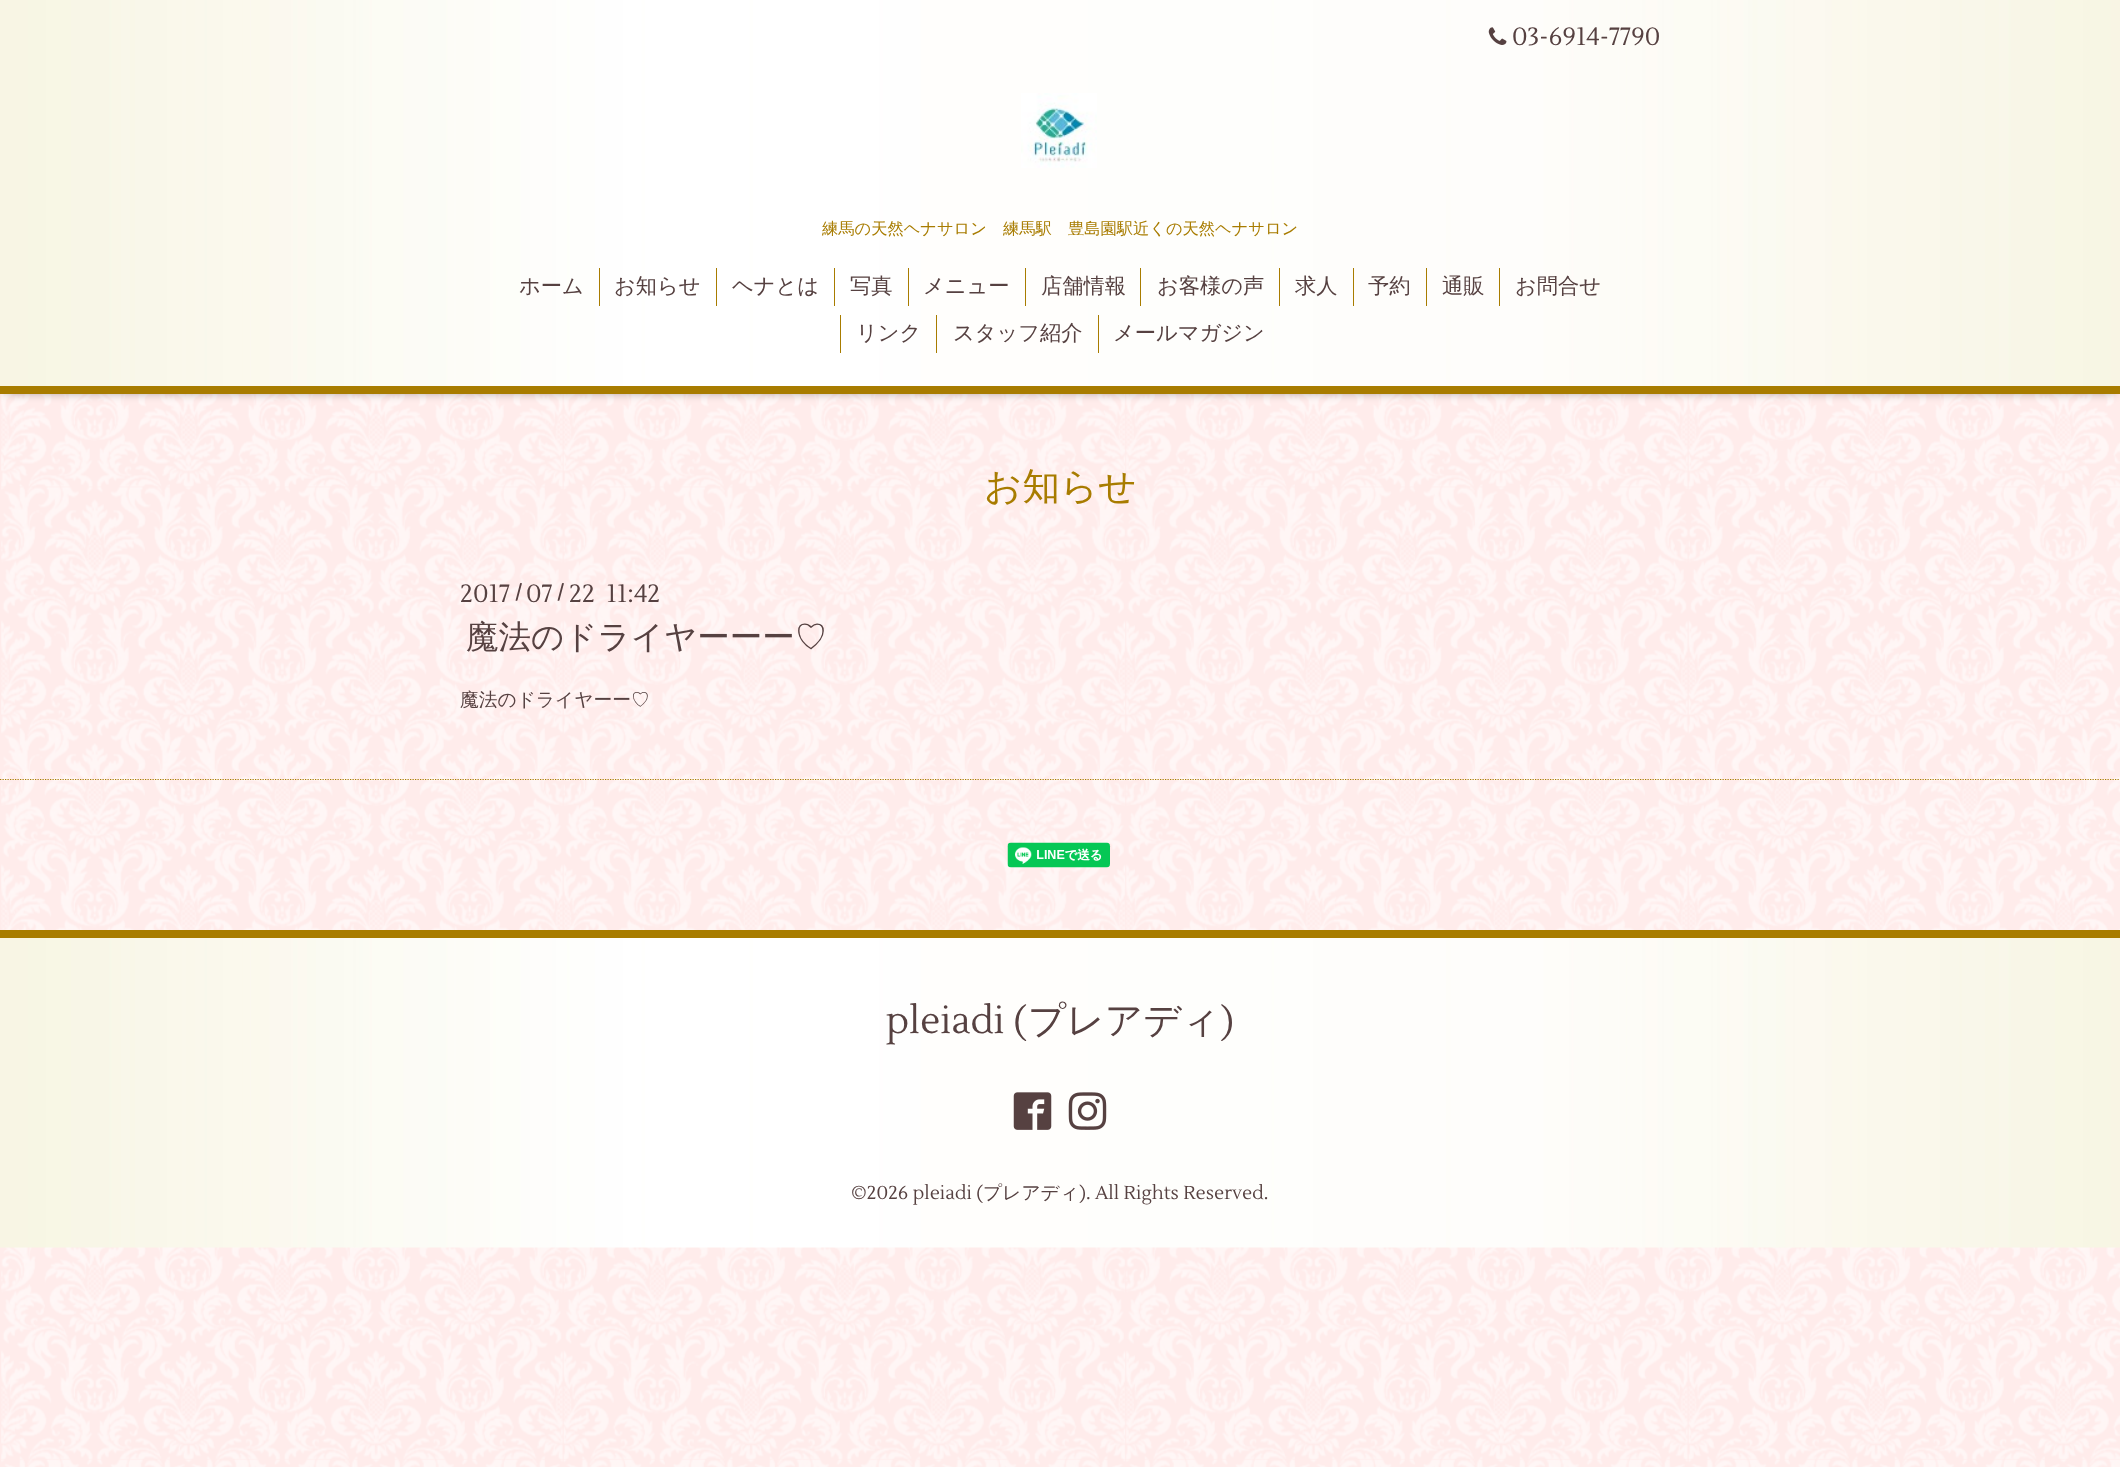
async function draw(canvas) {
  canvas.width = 2120
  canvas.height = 1467
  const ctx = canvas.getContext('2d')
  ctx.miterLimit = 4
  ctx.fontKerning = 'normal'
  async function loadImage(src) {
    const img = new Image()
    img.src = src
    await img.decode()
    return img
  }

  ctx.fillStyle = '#ffeceb'
  ctx.fillRect(0, 0, 2120, 1467)
  ctx.drawImage(await loadImage('image0.png'), 1, 394, 2119, 1073)
  ctx.fillStyle = '#00000099'
  ctx.filter = 'blur(6px)'
  ctx.beginPath()
  ctx.rect(5, 6, 2110, 384)
  ctx.fill()
  ctx.filter = 'none'
  ctx.drawImage(await loadImage('image1.png'), 0, 0, 2120, 386)
  ctx.fillStyle = '#a87c00'
  ctx.fillRect(0, 386, 2120, 8)
  ctx.drawImage(await loadImage('image2.png'), 1488, 27, 19, 18)
  ctx.font = '25px Lustria'
  ctx.fillStyle = '#564141'
  ctx.fillText('03-6914-7790', 1512, 45)
  ctx.drawImage(await loadImage('image3.png'), 1021, 93, 76, 75)
  ctx.font = '500 16.25px WenQuanYi Zen Hei'
  ctx.fillStyle = '#a87c00'
  ctx.fillText('練馬の天然ヘナサロン　練馬駅　豊島園駅近くの天然ヘナサロン', 822, 234)
  ctx.font = '500 21.25px WenQuanYi Zen Hei'
  ctx.fillStyle = '#564141'
  ctx.fillText('ホーム', 519, 293)
  ctx.fillStyle = '#a87c00'
  ctx.fillRect(599, 268, 1, 38)
  ctx.fillStyle = '#564141'
  ctx.fillText('お知らせ', 614, 293)
  ctx.fillStyle = '#a87c00'
  ctx.fillRect(716, 268, 1, 38)
  ctx.fillStyle = '#564141'
  ctx.fillText('ヘナとは', 732, 293)
  ctx.fillStyle = '#a87c00'
  ctx.fillRect(834, 268, 1, 38)
  ctx.fillStyle = '#564141'
  ctx.fillText('写真', 850, 293)
  ctx.fillStyle = '#a87c00'
  ctx.fillRect(908, 268, 1, 38)
  ctx.fillStyle = '#564141'
  ctx.fillText('メニュー', 923, 293)
  ctx.fillStyle = '#a87c00'
  ctx.fillRect(1025, 268, 1, 38)
  ctx.fillStyle = '#564141'
  ctx.fillText('店舗情報', 1041, 293)
  ctx.fillStyle = '#a87c00'
  ctx.fillRect(1140, 268, 1, 38)
  ctx.fillStyle = '#564141'
  ctx.fillText('お客様の声', 1157, 293)
  ctx.fillStyle = '#a87c00'
  ctx.fillRect(1279, 268, 1, 38)
  ctx.fillStyle = '#564141'
  ctx.fillText('求人', 1295, 293)
  ctx.fillStyle = '#a87c00'
  ctx.fillRect(1353, 268, 1, 38)
  ctx.fillStyle = '#564141'
  ctx.fillText('予約', 1368, 293)
  ctx.fillStyle = '#a87c00'
  ctx.fillRect(1426, 268, 1, 38)
  ctx.fillStyle = '#564141'
  ctx.fillText('通販', 1442, 293)
  ctx.fillStyle = '#a87c00'
  ctx.fillRect(1499, 268, 1, 38)
  ctx.fillStyle = '#564141'
  ctx.fillText('お問合せ', 1515, 293)
  ctx.fillStyle = '#a87c00'
  ctx.fillRect(840, 315, 1, 38)
  ctx.fillStyle = '#564141'
  ctx.fillText('リンク', 856, 340)
  ctx.fillStyle = '#a87c00'
  ctx.fillRect(936, 315, 1, 38)
  ctx.fillStyle = '#564141'
  ctx.fillText('スタッフ紹介', 953, 340)
  ctx.fillStyle = '#a87c00'
  ctx.fillRect(1098, 315, 1, 38)
  ctx.fillStyle = '#564141'
  ctx.fillText('メールマガジン', 1113, 340)
  ctx.font = '500 37.5px WenQuanYi Zen Hei'
  ctx.fillStyle = '#a87c00'
  ctx.fillText('お知らせ', 984, 499)
  ctx.font = '25px Lustria'
  ctx.fillStyle = '#564141'
  ctx.fillText('2017', 460, 602)
  ctx.font = 'bold 20px Lustria'
  ctx.fillText('/', 515, 599)
  ctx.font = '25px Lustria'
  ctx.fillText('07', 526, 602)
  ctx.font = 'bold 20px Lustria'
  ctx.fillText('/', 557, 599)
  ctx.font = '25px Lustria'
  ctx.fillText('22  11:42', 569, 602)
  ctx.font = '500 32.5px WenQuanYi Zen Hei'
  ctx.fillText('魔法のドライヤーーー♡', 466, 648)
  ctx.font = '500 18.75px WenQuanYi Zen Hei'
  ctx.fillText('魔法のドライヤーー♡', 460, 706)
  ctx.beginPath()
  ctx.moveTo(0, 779.5)
  ctx.lineTo(2120, 779.5)
  ctx.strokeStyle = '#a87c00'
  ctx.lineWidth = 1.2
  ctx.setLineDash([1.25, 1.25])
  ctx.stroke()
  ctx.drawImage(await loadImage('image4.png'), 1007, 842, 104, 26)
  ctx.drawImage(await loadImage('image5.png'), 0, 938, 2120, 310)
  ctx.fillStyle = '#a87c00'
  ctx.fillRect(0, 930, 2120, 8)
  ctx.font = '37.5px Lustria'
  ctx.fillStyle = '#564141'
  ctx.fillText('pleiadi (', 886, 1033)
  ctx.font = '500 37.5px WenQuanYi Zen Hei'
  ctx.fillText('プレアディ', 1028, 1033)
  ctx.font = '37.5px Lustria'
  ctx.fillText(')', 1220, 1033)
  ctx.drawImage(await loadImage('image6.png'), 1013, 1092, 39, 38)
  ctx.drawImage(await loadImage('image7.png'), 1068, 1092, 39, 38)
  ctx.font = '18.75px Lustria'
  ctx.fillText('©2026 pleiadi (', 851, 1199)
  ctx.font = '500 18.75px WenQuanYi Zen Hei'
  ctx.fillText('プレアディ', 983, 1199)
  ctx.font = '18.75px Lustria'
  ctx.fillText('). All Rights Reserved.', 1079, 1199)
}

draw(document.querySelector('canvas'))
